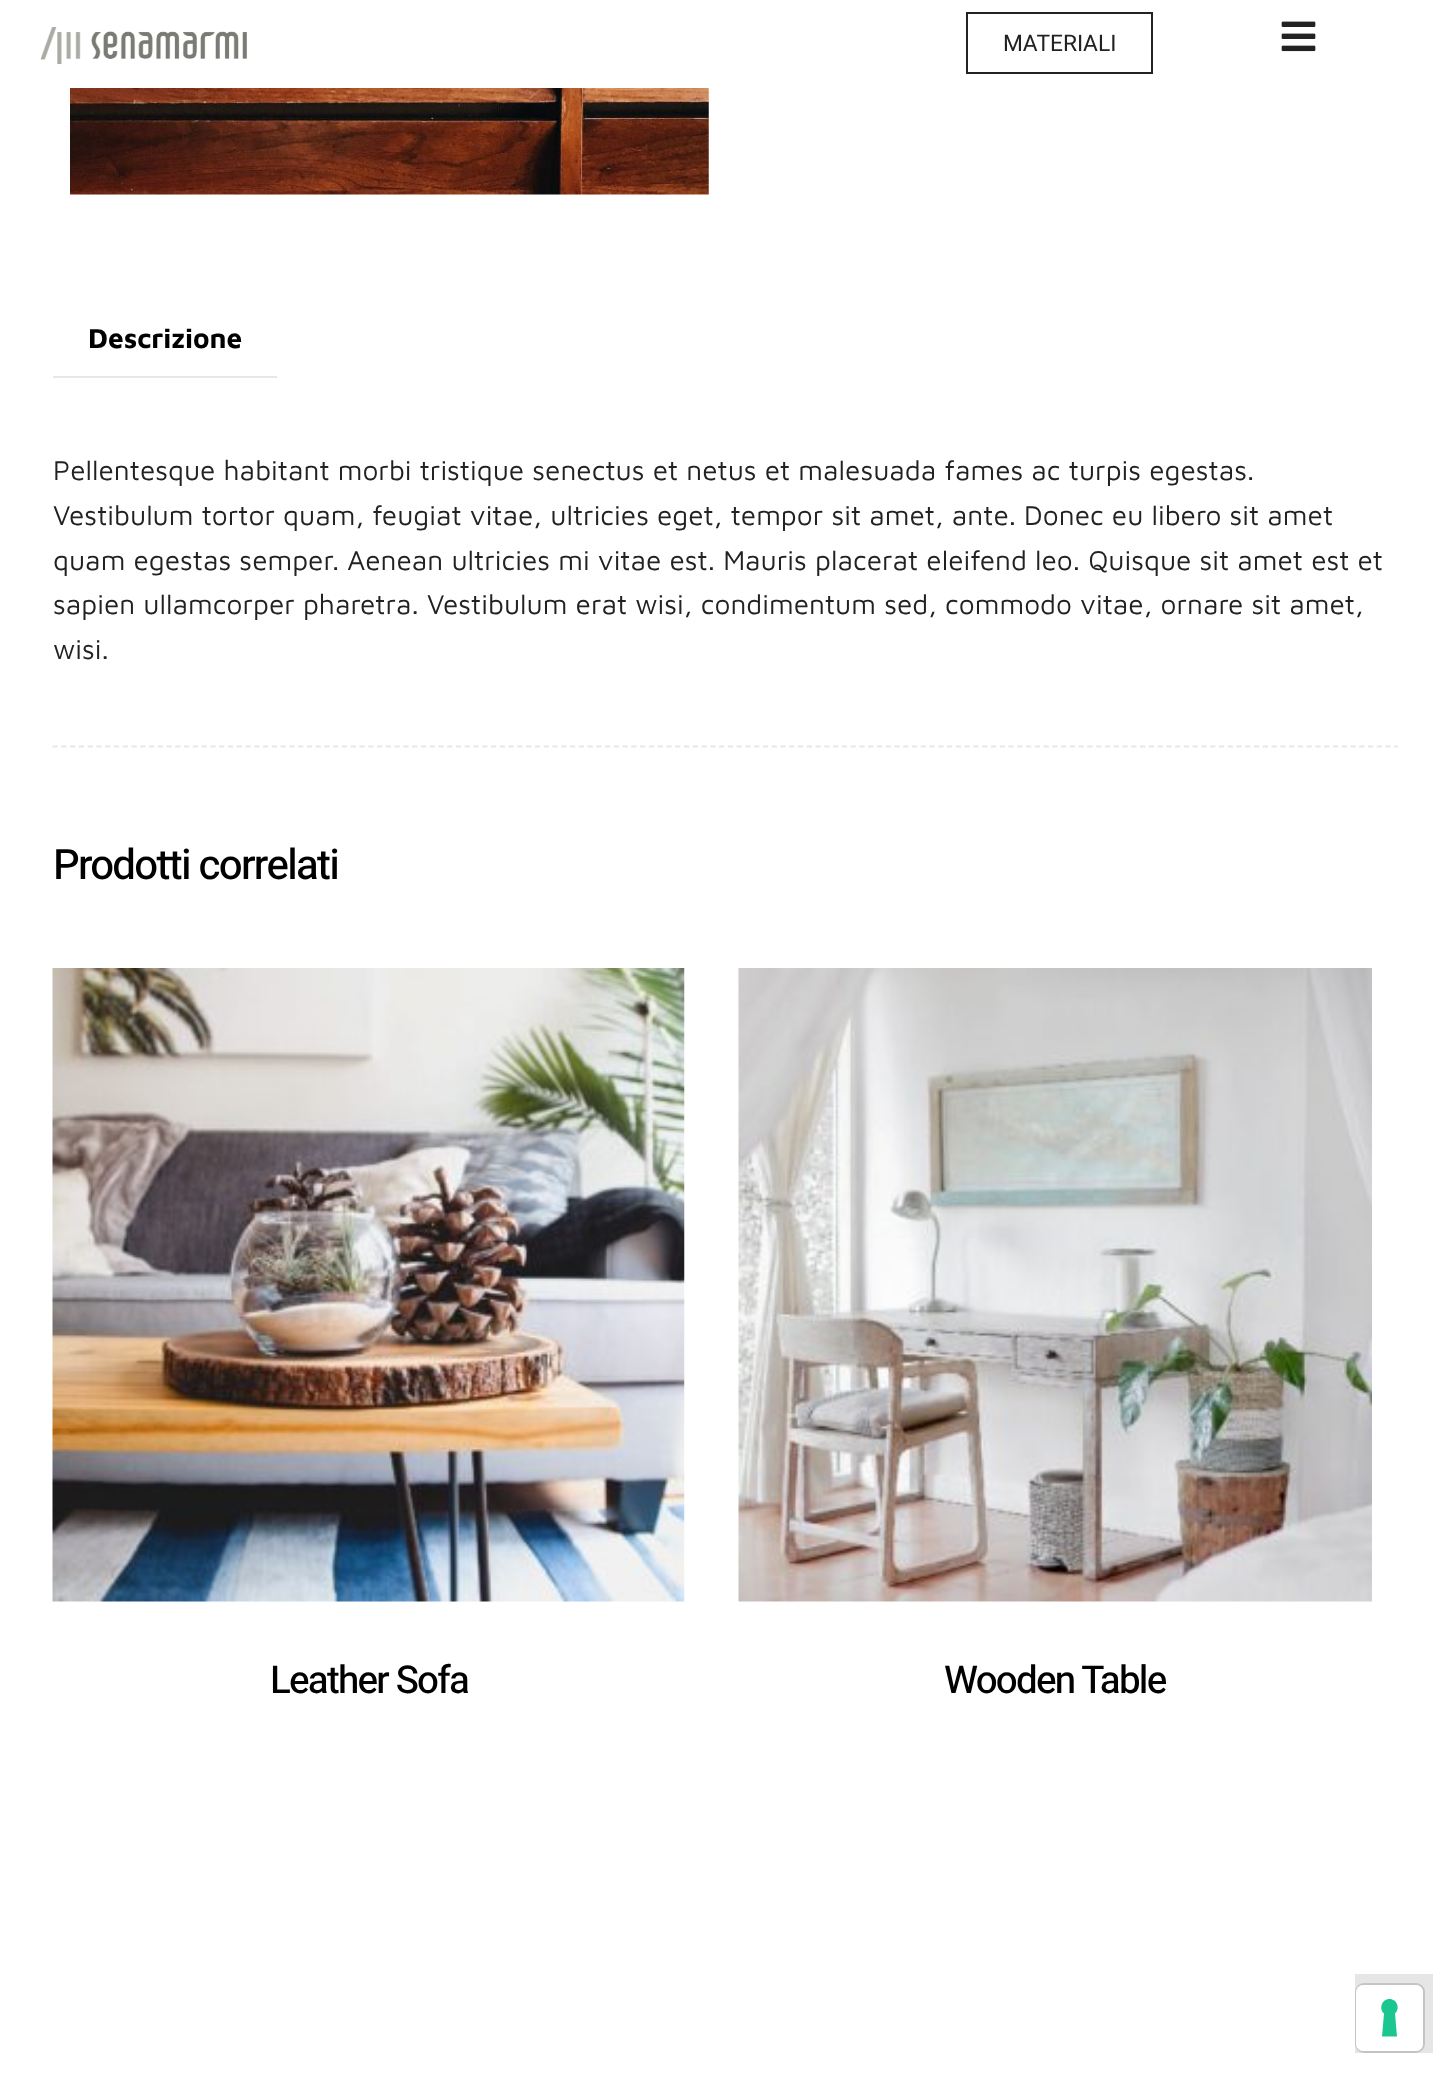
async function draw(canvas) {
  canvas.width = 1450
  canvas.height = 2078
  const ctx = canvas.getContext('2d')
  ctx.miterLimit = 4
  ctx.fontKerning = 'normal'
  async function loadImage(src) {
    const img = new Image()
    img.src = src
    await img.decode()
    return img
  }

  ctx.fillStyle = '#fff'
  ctx.fillRect(0, 0, 1450, 2078)
  ctx.drawImage(await loadImage('image0.png'), 40, 27, 207, 38)
  ctx.strokeStyle = '#222'
  ctx.lineWidth = 2
  ctx.strokeRect(967, 13, 185, 60)
  ctx.font = '22.75px Heebo'
  ctx.fillStyle = '#222'
  ctx.fillText('MATERIALI', 1003, 51)
  ctx.drawImage(await loadImage('image1.png'), 1281, 21, 35, 31)
  ctx.drawImage(await loadImage('image2.png'), 70, 88, 639, 107)
  ctx.fillStyle = '#e7e7e7'
  ctx.fillRect(53, 376, 224, 2)
  ctx.font = 'bold 28px Maven Pro'
  ctx.fillStyle = '#000'
  ctx.fillText('Descrizione', 88, 348)
  ctx.font = '28px Maven Pro'
  ctx.fillStyle = '#222'
  ctx.fillText('Pellentesque habitant morbi tristique senectus et netus et malesuada fames ac turpis egestas.', 53, 480)
  ctx.fillText('Vestibulum tortor quam, feugiat vitae, ultricies eget, tempor sit amet, ante. Donec eu libero sit amet', 53, 525)
  ctx.fillText('quam egestas semper. Aenean ultricies mi vitae est. Mauris placerat eleifend leo. Quisque sit amet est et', 53, 570)
  ctx.fillText('sapien ullamcorper pharetra. Vestibulum erat wisi, condimentum sed, commodo vitae, ornare sit amet,', 53, 614)
  ctx.fillText('wisi.', 53, 659)
  ctx.beginPath()
  ctx.moveTo(52.5, 746.5)
  ctx.lineTo(1398, 746.5)
  ctx.strokeStyle = '#e7e7e7'
  ctx.lineWidth = 1.8
  ctx.setLineDash([5.25, 3.52])
  ctx.stroke()
  ctx.letterSpacing = '-1.75px'
  ctx.font = '500 42px Heebo'
  ctx.fillStyle = '#000'
  ctx.fillText('Prodotti correlati', 53, 879)
  ctx.drawImage(await loadImage('image3.png'), 52, 968, 633, 634)
  ctx.font = '500 38.5px Heebo'
  ctx.fillText('Leather Sofa', 270, 1693)
  ctx.drawImage(await loadImage('image4.png'), 738, 968, 634, 634)
  ctx.fillText('Wooden Table', 944, 1693)
  ctx.fillStyle = '#e6e6e6'
  ctx.fillRect(1355, 1974, 78, 79)
  ctx.beginPath()
  ctx.roundRect(1356, 1984, 68, 68, 8)
  ctx.strokeStyle = '#c4c4c4'
  ctx.lineWidth = 2
  ctx.setLineDash([])
  ctx.stroke()
  ctx.fillStyle = '#fff'
  ctx.beginPath()
  ctx.roundRect(1356, 1985, 67, 66, 7)
  ctx.fill()
  ctx.fillStyle = '#1cc691'
  ctx.beginPath()
  ctx.moveTo(1389.5, 1999)
  ctx.bezierCurveTo(1397, 1999, 1400.5, 2008.5, 1395, 2013.5)
  ctx.lineTo(1397, 2036.5)
  ctx.lineTo(1382, 2036.5)
  ctx.lineTo(1384, 2013.5)
  ctx.bezierCurveTo(1378.5, 2008.5, 1382, 1999, 1389.5, 1999)
  ctx.closePath()
  ctx.fill('evenodd')
}

draw(document.querySelector('canvas'))
